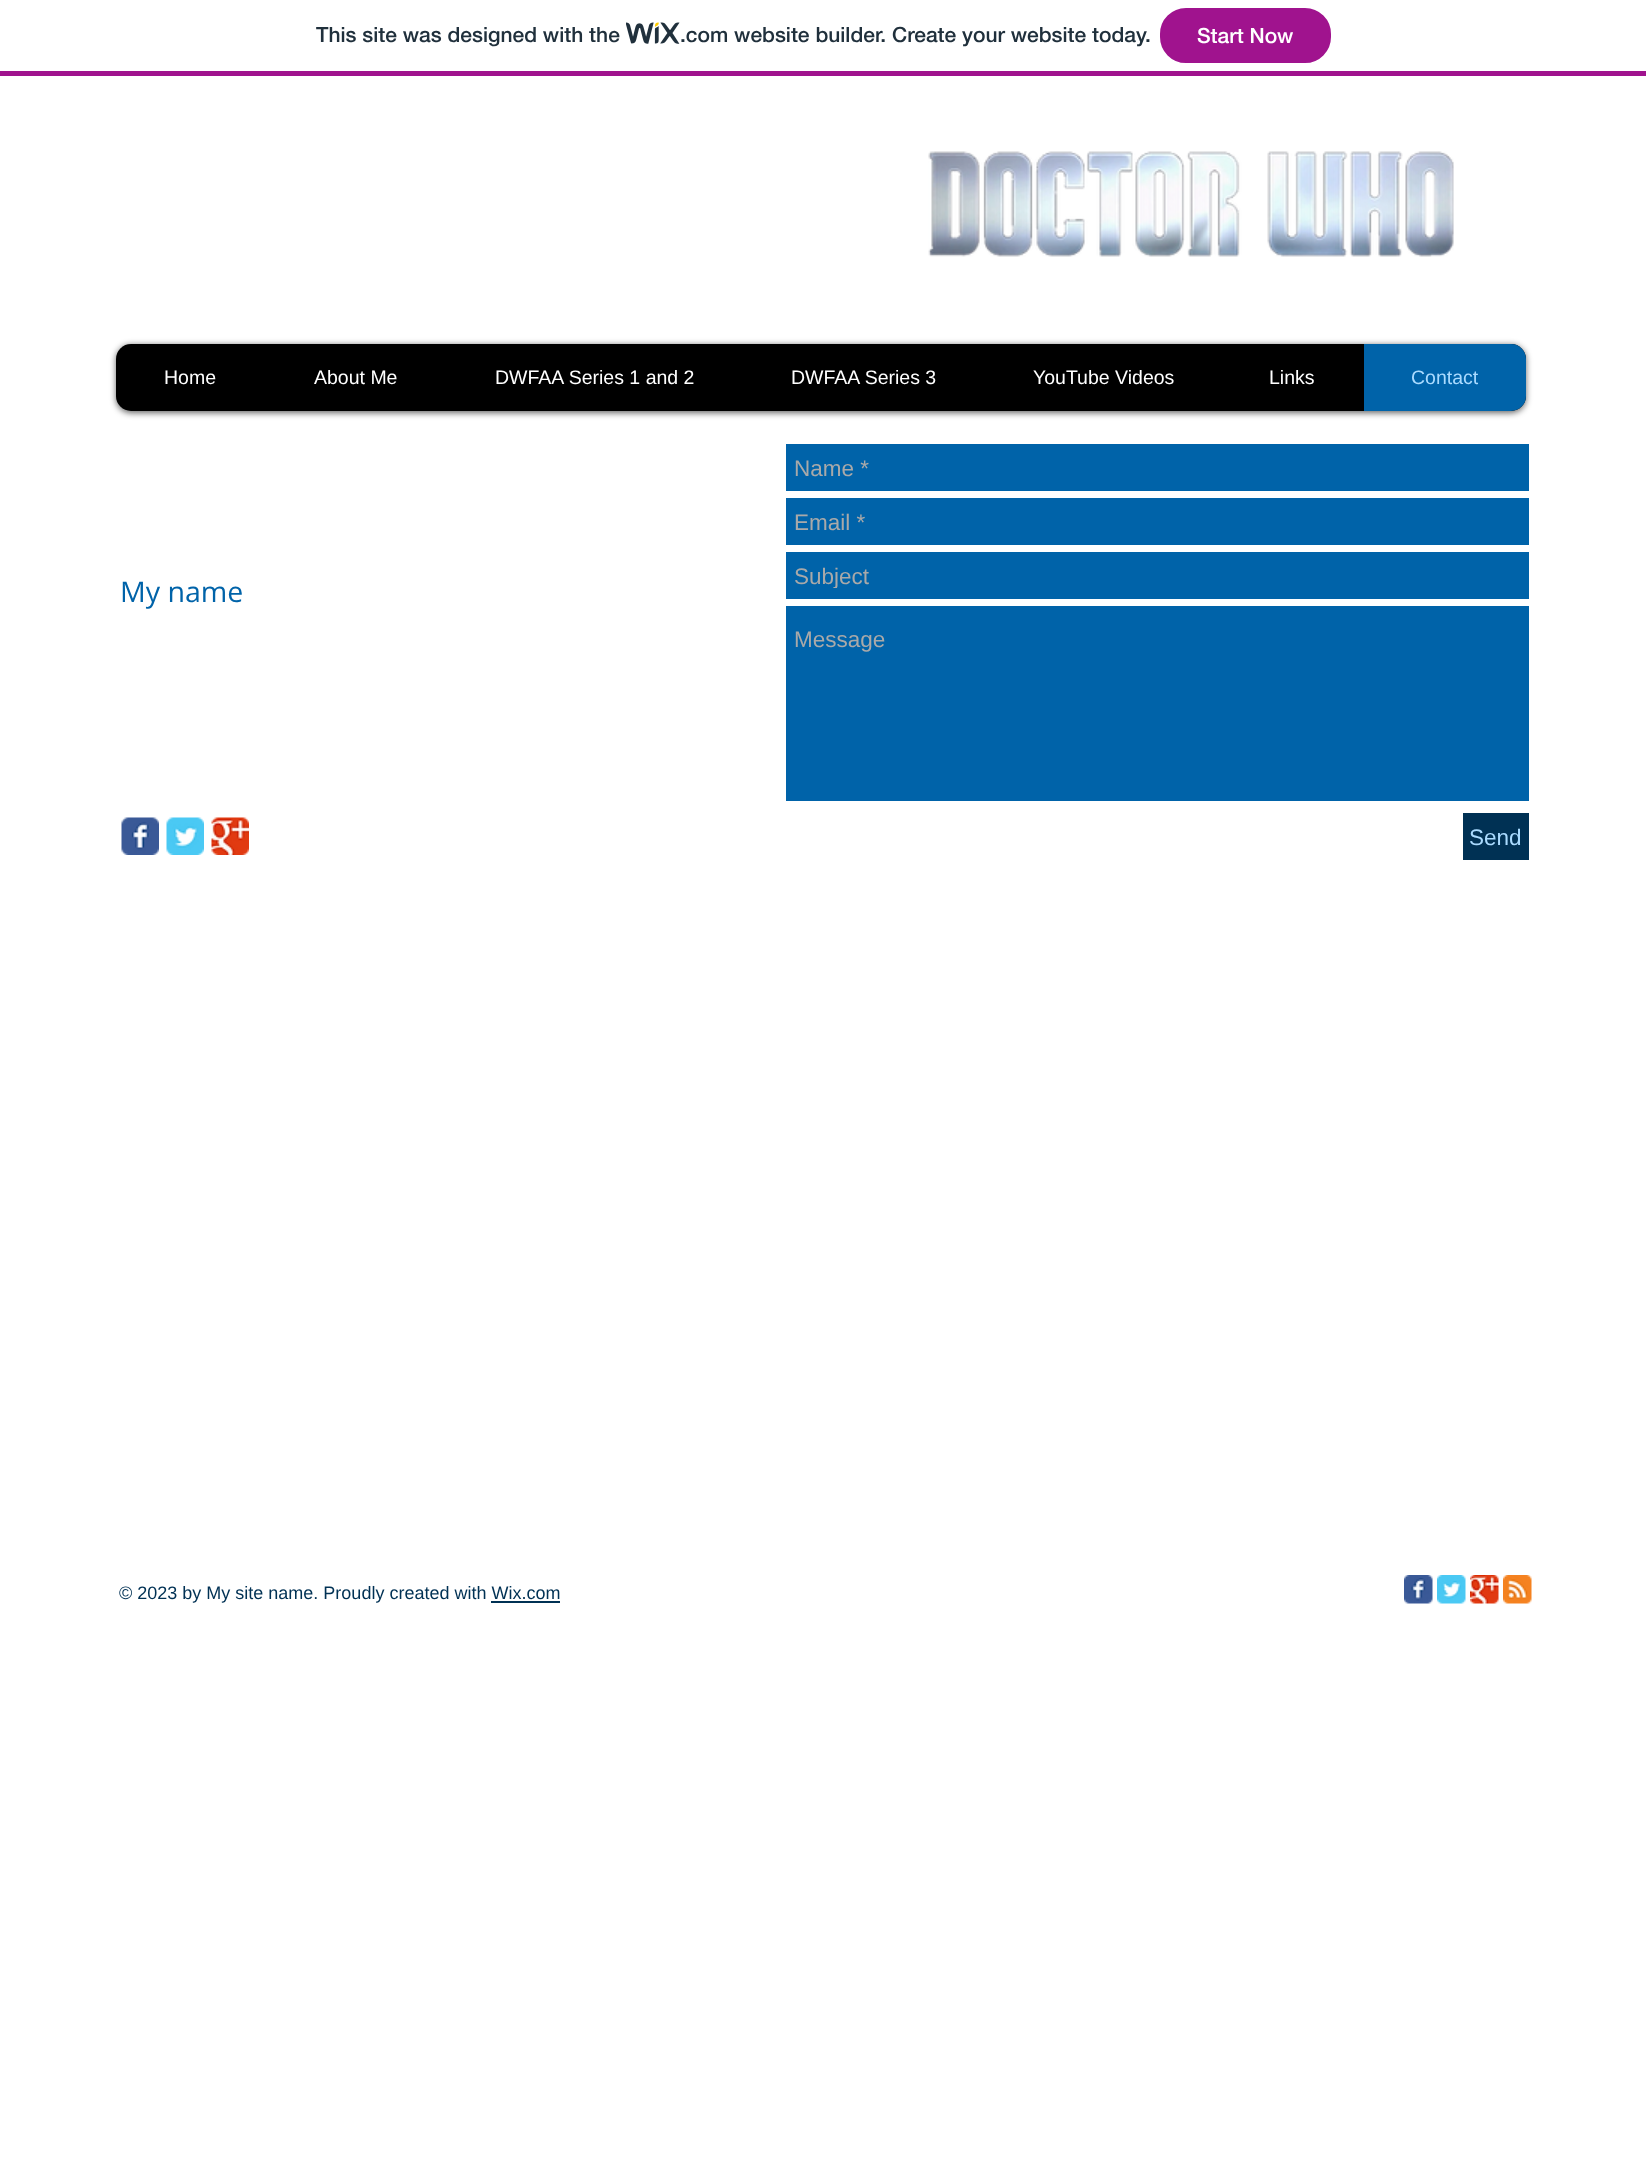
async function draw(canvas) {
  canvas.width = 1646
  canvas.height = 2164
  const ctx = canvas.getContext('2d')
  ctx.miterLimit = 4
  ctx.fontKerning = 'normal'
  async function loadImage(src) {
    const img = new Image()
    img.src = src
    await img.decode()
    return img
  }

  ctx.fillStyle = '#fff'
  ctx.fillRect(0, 0, 1646, 2164)
  ctx.fillStyle = '#a0138e'
  ctx.fillRect(0, 71, 1646, 5)
  ctx.font = '500 21px "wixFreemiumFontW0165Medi"'
  ctx.fillStyle = '#20303c'
  ctx.fillText('This site was designed with the', 316, 42)
  ctx.drawImage(await loadImage('image0.png'), 626, 22, 54, 22)
  ctx.fillText('.com website builder. Create your website today.', 680, 42)
  ctx.fillStyle = '#a0138e'
  ctx.beginPath()
  ctx.roundRect(1161, 9, 169, 53, 25)
  ctx.fill()
  ctx.strokeStyle = '#a0138e'
  ctx.lineWidth = 2
  ctx.stroke()
  ctx.fillStyle = '#fff'
  ctx.fillText('Start Now', 1197, 43)
  ctx.drawImage(await loadImage('image1.png'), 928, 151, 526, 106)
  ctx.fillStyle = '#00000099'
  ctx.filter = 'blur(3px)'
  ctx.beginPath()
  ctx.roundRect(116, 345, 1410, 68, 15)
  ctx.fill()
  ctx.filter = 'none'
  ctx.fillStyle = '#000'
  ctx.beginPath()
  ctx.roundRect(116, 344, 1410, 67, 15)
  ctx.fill()
  ctx.font = '19.5px Liberation Sans'
  ctx.fillStyle = '#fff'
  ctx.fillText('Home', 164, 384)
  ctx.fillText('About Me', 314, 384)
  ctx.fillText('DWFAA Series 1 and 2', 495, 384)
  ctx.fillText('DWFAA Series 3', 791, 384)
  ctx.fillText('YouTube Videos', 1033, 384)
  ctx.fillText('Links', 1269, 384)
  ctx.fillStyle = '#0063a9'
  ctx.beginPath()
  ctx.roundRect(1362, 344, 164, 67, [0, 15, 15, 0])
  ctx.fill()
  ctx.fillStyle = '#000'
  ctx.fillRect(1362, 344, 2, 67)
  ctx.fillStyle = '#aadbff'
  ctx.fillText('Contact', 1411, 384)
  ctx.font = '28.5px Open Sans'
  ctx.fillStyle = '#0063a9'
  ctx.fillText('My name', 120, 602)
  ctx.fillRect(786, 444, 743, 47)
  ctx.font = '22.5px Liberation Sans'
  ctx.fillStyle = '#a9a9a9'
  ctx.fillText('Name *', 794, 476)
  ctx.fillStyle = '#0063a9'
  ctx.fillRect(786, 498, 743, 47)
  ctx.fillStyle = '#a9a9a9'
  ctx.fillText('Email *', 794, 530)
  ctx.fillStyle = '#0063a9'
  ctx.fillRect(786, 552, 743, 47)
  ctx.save()
  ctx.beginPath()
  ctx.rect(794, 563, 730, 25)
  ctx.clip()
  ctx.fillStyle = '#a9a9a9'
  ctx.fillText('Subject', 794, 584)
  ctx.restore()
  ctx.fillRect(786, 606, 743, 195)
  ctx.fillStyle = '#a9a9a9'
  ctx.fillText('Message', 794, 647)
  ctx.fillStyle = '#003154'
  ctx.fillRect(1463, 813, 66, 47)
  ctx.fillStyle = '#aadbff'
  ctx.fillText('Send', 1469, 845)
  ctx.drawImage(await loadImage('image2.png'), 121, 817, 38, 38)
  ctx.drawImage(await loadImage('image3.png'), 166, 817, 38, 38)
  ctx.drawImage(await loadImage('image4.png'), 211, 817, 38, 38)
  ctx.font = '18px Liberation Sans'
  ctx.fillStyle = '#003154'
  ctx.fillText('© 2023 by My site name. Proudly created with Wix.com', 119, 1599)
  ctx.fillRect(491, 1601, 69, 2)
  ctx.drawImage(await loadImage('image5.png'), 1404, 1575, 29, 29)
  ctx.drawImage(await loadImage('image6.png'), 1437, 1575, 29, 29)
  ctx.drawImage(await loadImage('image7.png'), 1470, 1575, 29, 29)
  ctx.drawImage(await loadImage('image8.png'), 1503, 1575, 29, 29)
}

draw(document.querySelector('canvas'))
